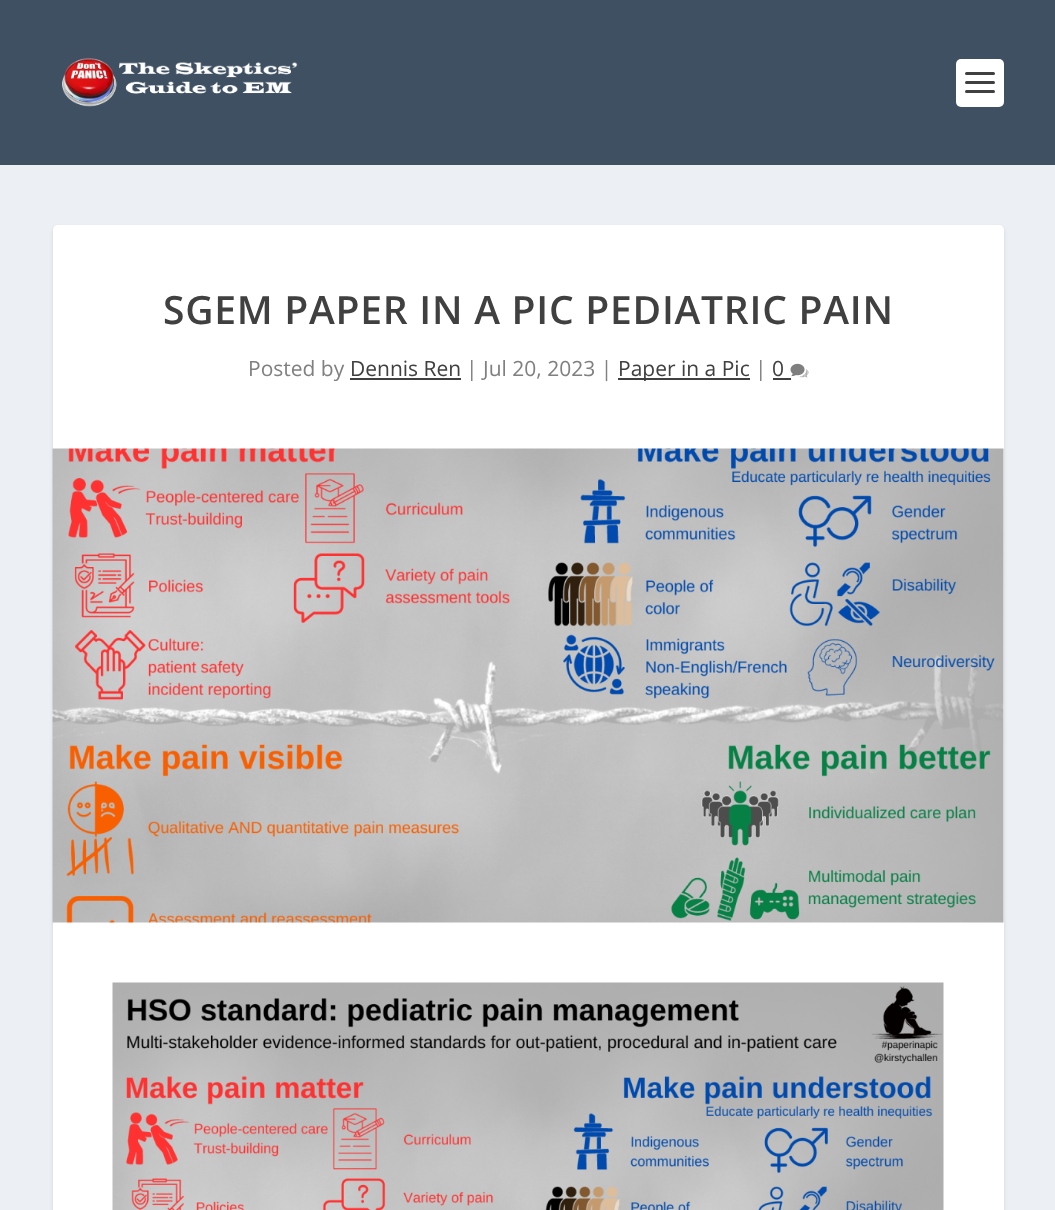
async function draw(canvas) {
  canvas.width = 1055
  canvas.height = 1210
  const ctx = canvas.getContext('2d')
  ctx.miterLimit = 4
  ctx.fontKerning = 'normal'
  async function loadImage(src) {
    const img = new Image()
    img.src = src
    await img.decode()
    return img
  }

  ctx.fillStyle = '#ecf0f5'
  ctx.fillRect(0, 0, 1055, 1210)
  ctx.fillStyle = '#3e5062'
  ctx.fillRect(0, 0, 1055, 165)
  ctx.drawImage(await loadImage('image0.png'), 62, 58, 236, 49)
  ctx.fillStyle = '#fff'
  ctx.beginPath()
  ctx.roundRect(956, 59, 48, 48, 5)
  ctx.fill()
  ctx.fillStyle = '#404040'
  ctx.beginPath()
  ctx.roundRect(965, 72, 30, 3, 1.5)
  ctx.fill()
  ctx.beginPath()
  ctx.roundRect(965, 81, 30, 3, 1.5)
  ctx.fill()
  ctx.beginPath()
  ctx.roundRect(965, 90, 30, 3, 1.5)
  ctx.fill()
  ctx.fillStyle = '#0000001a'
  ctx.filter = 'blur(2px)'
  ctx.beginPath()
  ctx.roundRect(53, 227, 951, 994, 5)
  ctx.fill()
  ctx.filter = 'none'
  ctx.fillStyle = '#fff'
  ctx.beginPath()
  ctx.roundRect(53, 225, 951, 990, 5)
  ctx.fill()
  ctx.letterSpacing = '0.75px'
  ctx.font = '600 39px Open Sans'
  ctx.fillStyle = '#404040'
  ctx.fillText('SGEM PAPER IN A PIC PEDIATRIC PAIN', 163, 324)
  ctx.letterSpacing = '0px'
  ctx.font = '21px Open Sans'
  ctx.fillStyle = '#808080'
  ctx.fillText('Posted by', 248, 376)
  ctx.fillStyle = '#404040'
  ctx.fillText('Dennis Ren', 350, 376)
  ctx.fillRect(350, 378, 111, 2)
  ctx.fillStyle = '#808080'
  ctx.fillText('| Jul 20, 2023 |', 466, 376)
  ctx.fillStyle = '#404040'
  ctx.fillRect(618, 378, 132, 2)
  ctx.fillText('Paper in a Pic', 618, 376)
  ctx.fillStyle = '#808080'
  ctx.fillText('|', 755, 376)
  ctx.fillStyle = '#404040'
  ctx.fillText('0', 772, 376)
  ctx.fillRect(773, 378, 18, 2)
  ctx.drawImage(await loadImage('image1.png'), 790, 363, 19, 15)
  ctx.drawImage(await loadImage('image2.png'), 52, 448, 952, 475)
  ctx.drawImage(await loadImage('image3.png'), 112, 982, 832, 228)
}

draw(document.querySelector('canvas'))
